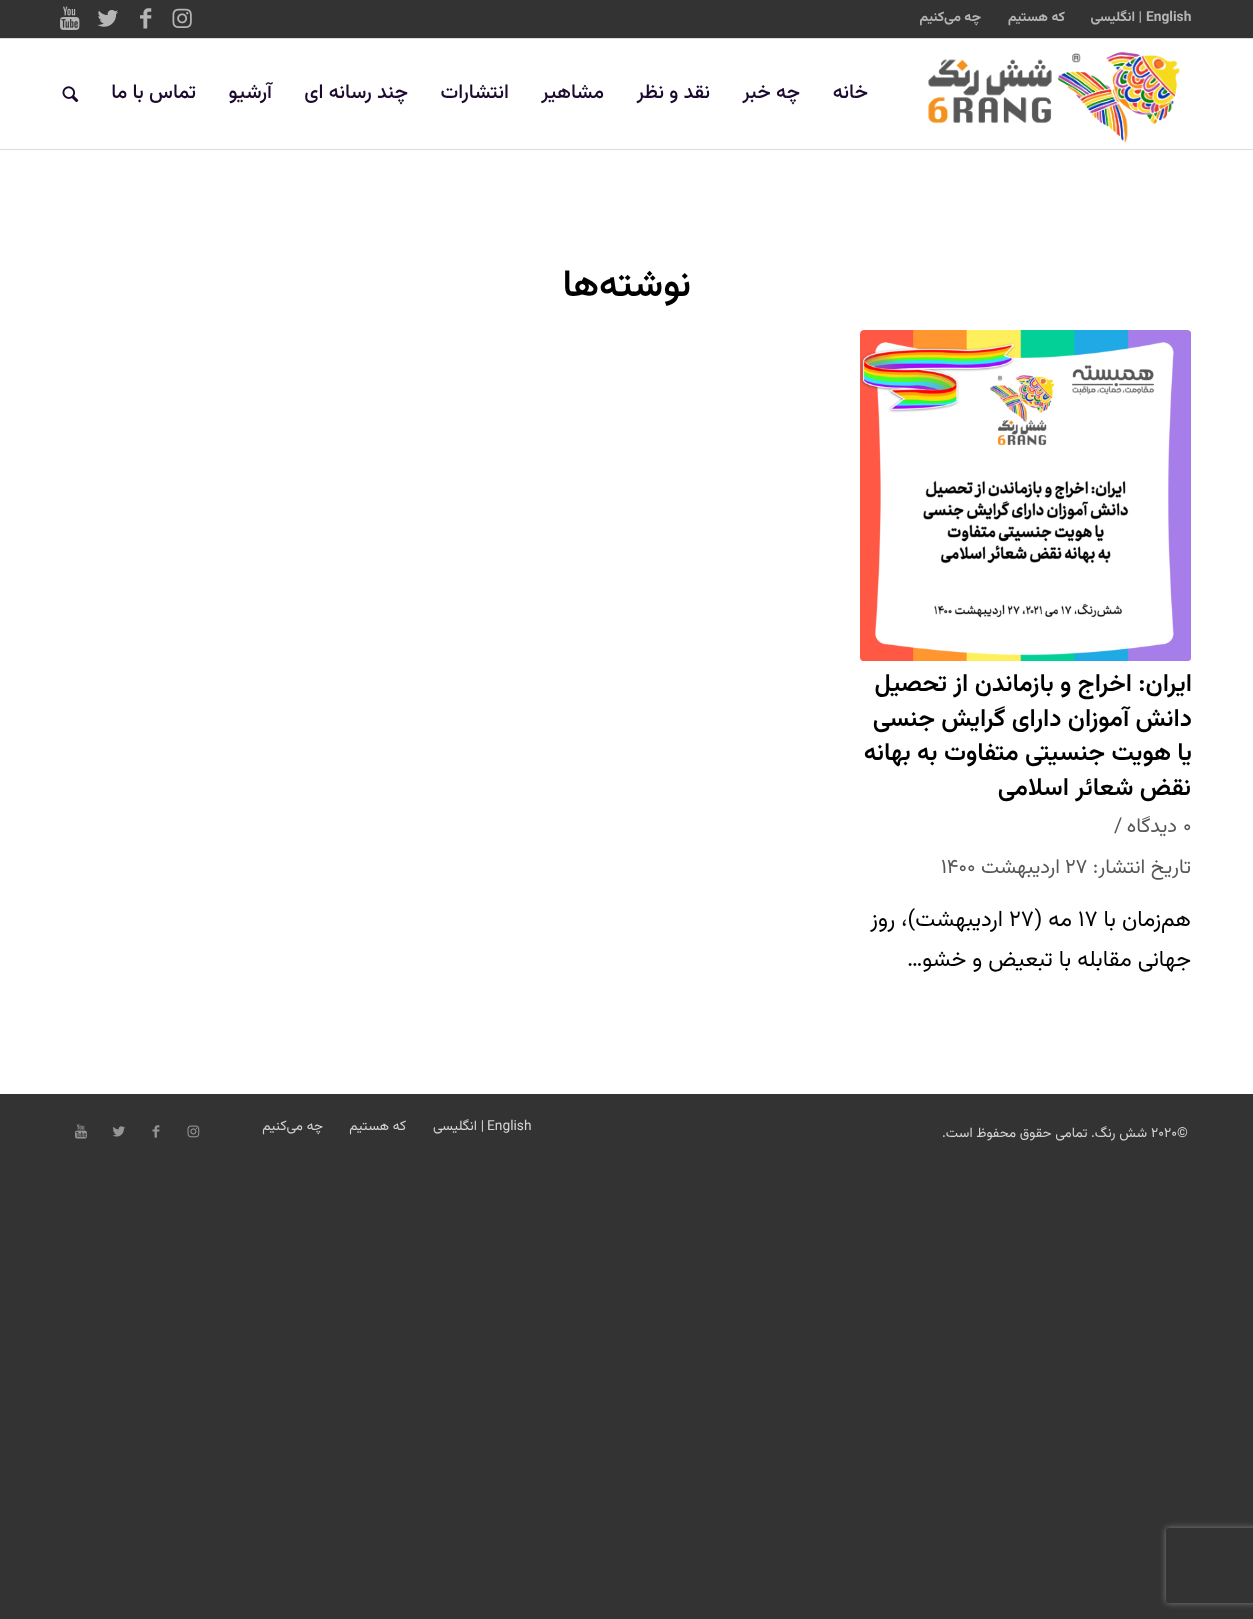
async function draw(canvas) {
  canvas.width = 1253
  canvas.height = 1619
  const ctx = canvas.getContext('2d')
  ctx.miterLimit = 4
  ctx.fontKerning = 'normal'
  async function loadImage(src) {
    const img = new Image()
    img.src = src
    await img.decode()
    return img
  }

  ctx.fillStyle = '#333'
  ctx.fillRect(0, 0, 1253, 1619)
  ctx.fillStyle = '#dadce0'
  ctx.fillRect(0, 38, 1253, 1)
  ctx.font = 'bold 13.75px Vazirmatn'
  ctx.fillStyle = '#b5b5b5'
  ctx.fillText('English', 1146, 21)
  ctx.direction = 'rtl'
  ctx.fillText('| انگلیسی', 1142, 21)
  ctx.fillText('که هستیم', 1065, 21)
  ctx.fillText('چه می‌کنیم', 981, 21)
  ctx.drawImage(await loadImage('image0.png'), 172, 8, 20, 20)
  ctx.drawImage(await loadImage('image1.png'), 140, 8, 12, 21)
  ctx.drawImage(await loadImage('image2.png'), 97, 10, 21, 17)
  ctx.drawImage(await loadImage('image3.png'), 60, 6, 20, 24)
  ctx.fillStyle = '#fff'
  ctx.fillRect(0, 39, 1253, 110)
  ctx.fillStyle = '#dadce0'
  ctx.fillRect(0, 149, 1253, 1)
  ctx.drawImage(await loadImage('image4.png'), 928, 51, 252, 92)
  ctx.font = '500 20px Vazirmatn'
  ctx.fillStyle = '#1c0a2e'
  ctx.fillText('خانه', 868, 98)
  ctx.fillText('چه خبر', 800, 98)
  ctx.fillText('نقد و نظر', 710, 98)
  ctx.fillText('مشاهیر', 604, 98)
  ctx.fillText('انتشارات', 509, 98)
  ctx.fillText('چند رسانه ای', 408, 98)
  ctx.fillText('آرشیو', 272, 98)
  ctx.fillText('تماس با ما', 196, 98)
  ctx.drawImage(await loadImage('image5.png'), 62, 86, 17, 17)
  ctx.fillStyle = '#fff'
  ctx.fillRect(0, 150, 1253, 944)
  ctx.font = '600 37.5px Vazirmatn'
  ctx.fillStyle = '#000'
  ctx.fillText('نوشته‌ها', 691, 296)
  ctx.drawImage(await loadImage('image6.png'), 860, 330, 331, 331)
  ctx.font = '600 24.75px Vazirmatn'
  ctx.fillText('ایران: اخراج و بازماندن از تحصیل', 1192, 691)
  ctx.fillText('دانش آموزان دارای گرایش جنسی', 1192, 726)
  ctx.fillText('یا هویت جنسیتی متفاوت به بهانه', 1192, 760)
  ctx.fillText('نقض شعائر اسلامی', 1191, 795)
  ctx.direction = 'ltr'
  ctx.font = '20.25px Vazirmatn'
  ctx.fillStyle = '#575757'
  ctx.fillText('۰', 1183, 832)
  ctx.direction = 'rtl'
  ctx.fillText('دیدگاه', 1177, 832)
  ctx.direction = 'ltr'
  ctx.fillText('/', 1114, 832)
  ctx.direction = 'rtl'
  ctx.fillText('تاریخ انتشار:', 1191, 873)
  ctx.direction = 'ltr'
  ctx.fillText('۲۷', 1065, 873)
  ctx.direction = 'rtl'
  ctx.fillText('اردیبهشت', 1060, 873)
  ctx.direction = 'ltr'
  ctx.fillText('۱۴۰۰', 941, 873)
  ctx.direction = 'rtl'
  ctx.font = '22.5px Vazirmatn'
  ctx.fillStyle = '#000'
  ctx.fillText('هم‌زمان با', 1191, 926)
  ctx.direction = 'ltr'
  ctx.fillText('۱۷', 1078, 926)
  ctx.direction = 'rtl'
  ctx.fillText('مه (', 1072, 926)
  ctx.direction = 'ltr'
  ctx.fillText('۲۷', 1009, 926)
  ctx.direction = 'rtl'
  ctx.fillText('اردیبهشت)، روز', 1003, 926)
  ctx.fillText('جهانی مقابله با تبعیض و خشو…', 1191, 966)
  ctx.direction = 'ltr'
  ctx.font = '13.75px Vazirmatn'
  ctx.fillStyle = '#d5d5d5'
  ctx.fillText('۲۰۲۰©', 1151, 1137)
  ctx.direction = 'rtl'
  ctx.fillText('شش رنگ. تمامی حقوق محفوظ است.', 1147, 1137)
  ctx.direction = 'ltr'
  ctx.fillText('English', 487, 1130)
  ctx.direction = 'rtl'
  ctx.fillText('| انگلیسی', 484, 1130)
  ctx.fillText('که هستیم', 406, 1130)
  ctx.fillText('چه می‌کنیم', 323, 1130)
  ctx.drawImage(await loadImage('image7.png'), 187, 1125, 13, 13)
  ctx.drawImage(await loadImage('image8.png'), 152, 1125, 8, 13)
  ctx.drawImage(await loadImage('image9.png'), 112, 1126, 13, 11)
  ctx.drawImage(await loadImage('image10.png'), 75, 1124, 12, 15)
  ctx.save()
  ctx.beginPath()
  ctx.moveTo(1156, 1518)
  ctx.lineTo(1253, 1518)
  ctx.lineTo(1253, 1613)
  ctx.lineTo(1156, 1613)
  ctx.closePath()
  ctx.moveTo(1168.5, 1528)
  ctx.lineTo(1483.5, 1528)
  ctx.bezierCurveTo(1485, 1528, 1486, 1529, 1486, 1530.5)
  ctx.lineTo(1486, 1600.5)
  ctx.bezierCurveTo(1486, 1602, 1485, 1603, 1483.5, 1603)
  ctx.lineTo(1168.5, 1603)
  ctx.bezierCurveTo(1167, 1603, 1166, 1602, 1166, 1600.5)
  ctx.lineTo(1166, 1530.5)
  ctx.bezierCurveTo(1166, 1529, 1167, 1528, 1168.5, 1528)
  ctx.closePath()
  ctx.clip('evenodd')
  ctx.fillStyle = '#808080'
  ctx.filter = 'blur(3px)'
  ctx.beginPath()
  ctx.roundRect(1166, 1528, 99, 75, 2.5)
  ctx.fill()
  ctx.filter = 'none'
  ctx.restore()
}

draw(document.querySelector('canvas'))
